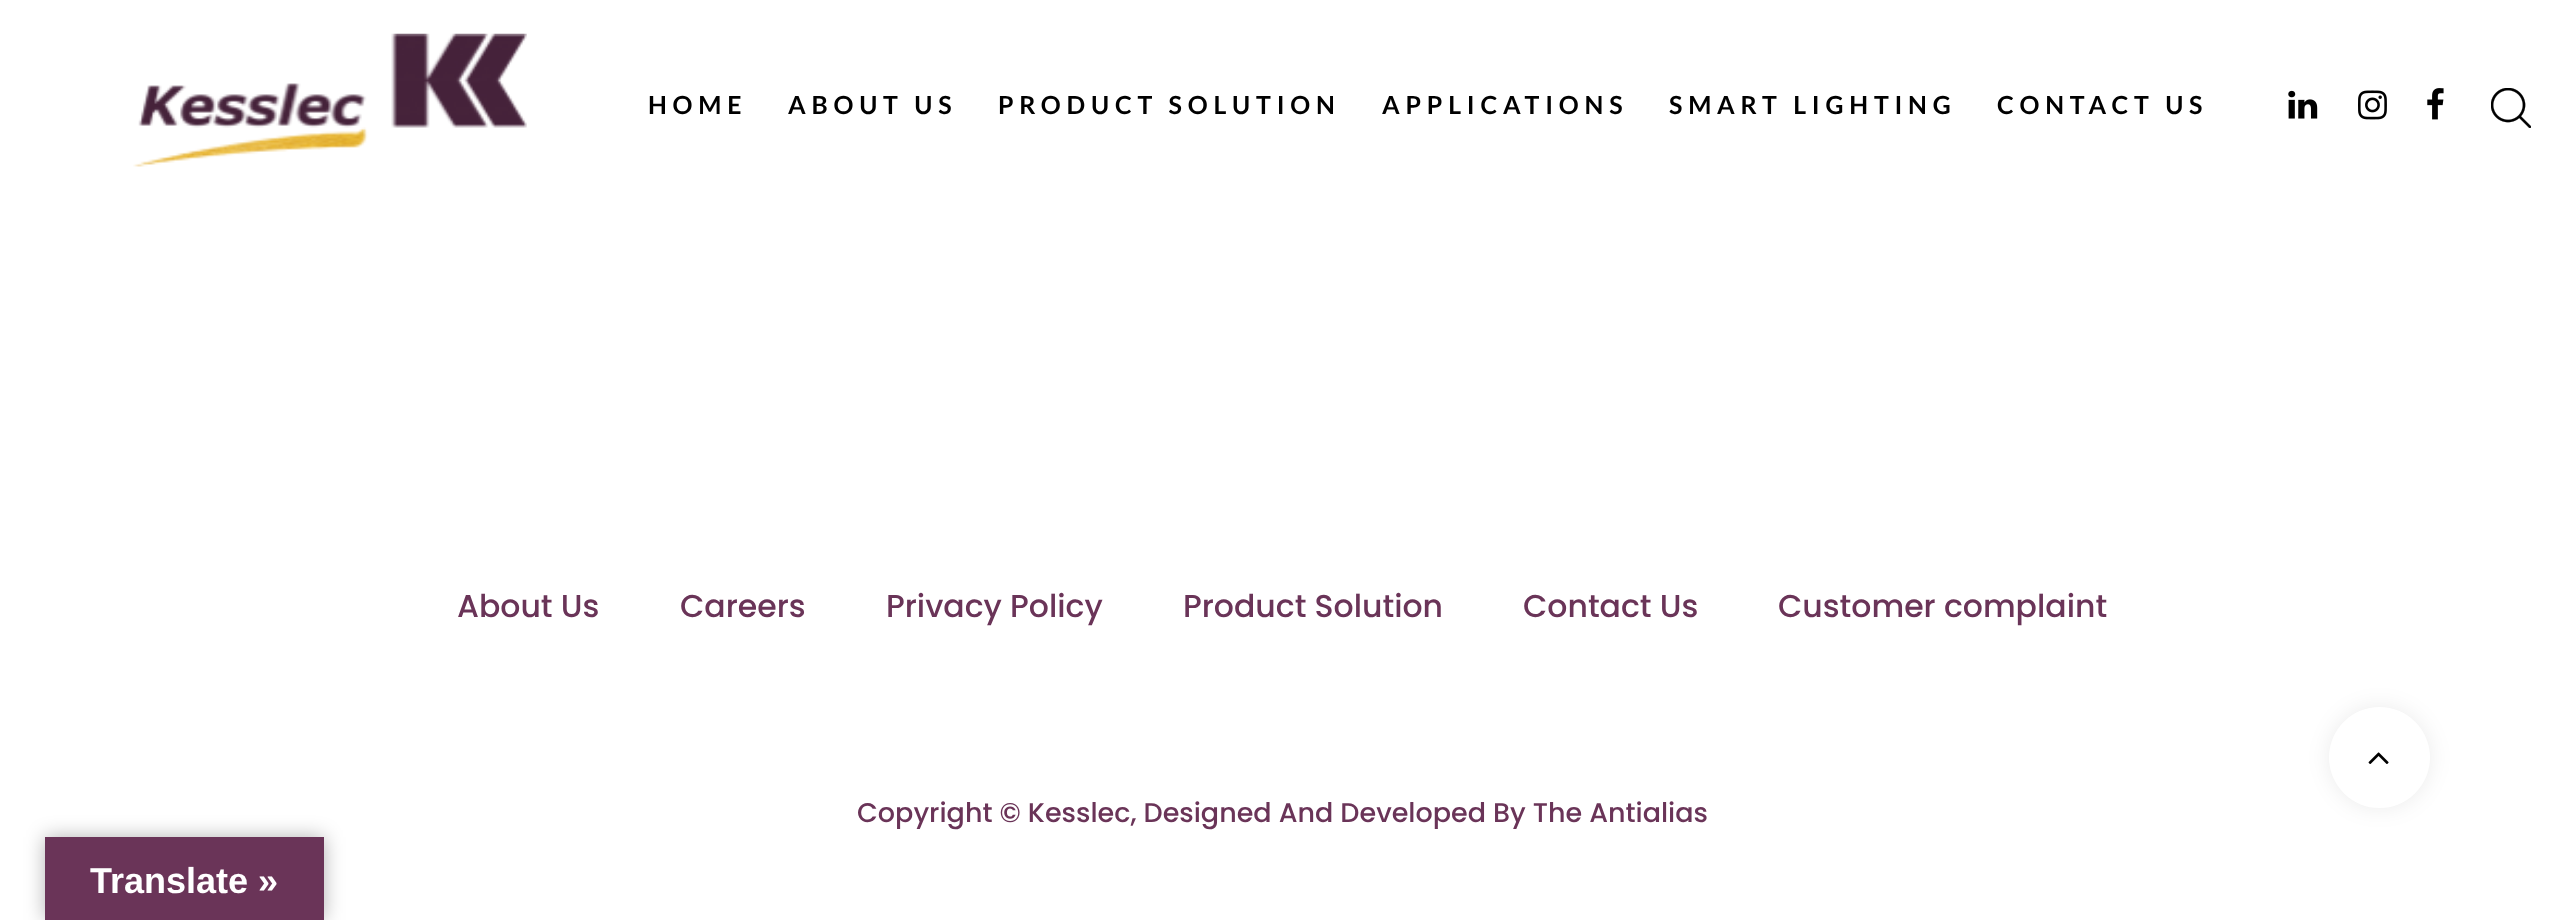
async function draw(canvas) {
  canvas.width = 2565
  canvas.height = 920
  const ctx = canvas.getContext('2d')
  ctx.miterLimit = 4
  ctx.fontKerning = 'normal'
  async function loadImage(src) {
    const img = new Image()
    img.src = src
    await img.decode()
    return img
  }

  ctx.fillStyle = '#fff'
  ctx.fillRect(0, 0, 2565, 920)
  ctx.drawImage(await loadImage('image0.png'), 133, 33, 394, 134)
  ctx.letterSpacing = '5.8px'
  ctx.font = 'bold 24.9px Lato'
  ctx.fillStyle = '#000'
  ctx.fillText('HOME', 648, 114)
  ctx.fillText('ABOUT US', 788, 114)
  ctx.fillText('PRODUCT SOLUTION', 998, 114)
  ctx.fillText('APPLICATIONS', 1382, 114)
  ctx.fillText('SMART LIGHTING', 1669, 114)
  ctx.fillText('CONTACT US', 1997, 114)
  ctx.drawImage(await loadImage('image1.png'), 2288, 90, 30, 29)
  ctx.drawImage(await loadImage('image2.png'), 2358, 90, 29, 30)
  ctx.drawImage(await loadImage('image3.png'), 2427, 88, 17, 32)
  ctx.drawImage(await loadImage('image4.png'), 2491, 88, 40, 40)
  ctx.letterSpacing = '0px'
  ctx.font = '500 31.5px Poppins'
  ctx.fillStyle = '#6a3458'
  ctx.fillText('About Us', 457, 617)
  ctx.fillText('Careers', 680, 617)
  ctx.fillText('Privacy Policy', 886, 617)
  ctx.fillText('Product Solution', 1183, 617)
  ctx.fillText('Contact Us', 1523, 617)
  ctx.fillText('Customer complaint', 1778, 617)
  ctx.font = '500 27px Poppins'
  ctx.fillText('Copyright © Kesslec, Designed And Developed By The Antialias', 857, 822)
  ctx.fillStyle = '#00000014'
  ctx.filter = 'blur(11px)'
  ctx.beginPath()
  ctx.roundRect(2329, 707, 101, 101, 50.5)
  ctx.fill()
  ctx.filter = 'none'
  ctx.fillStyle = '#fff'
  ctx.beginPath()
  ctx.arc(2379.5, 757.5, 50.5, 0, 2 * Math.PI)
  ctx.fill()
  ctx.drawImage(await loadImage('image5.png'), 2368, 752, 21, 12)
  ctx.fillStyle = '#0000004d'
  ctx.filter = 'blur(10px)'
  ctx.beginPath()
  ctx.rect(45, 837, 279, 83)
  ctx.fill()
  ctx.filter = 'none'
  ctx.fillStyle = '#6a3458'
  ctx.fillRect(45, 837, 279, 83)
  ctx.font = 'bold 36px Liberation Sans'
  ctx.fillStyle = '#fff'
  ctx.fillText('Translate »', 90, 893)
}

draw(document.querySelector('canvas'))
